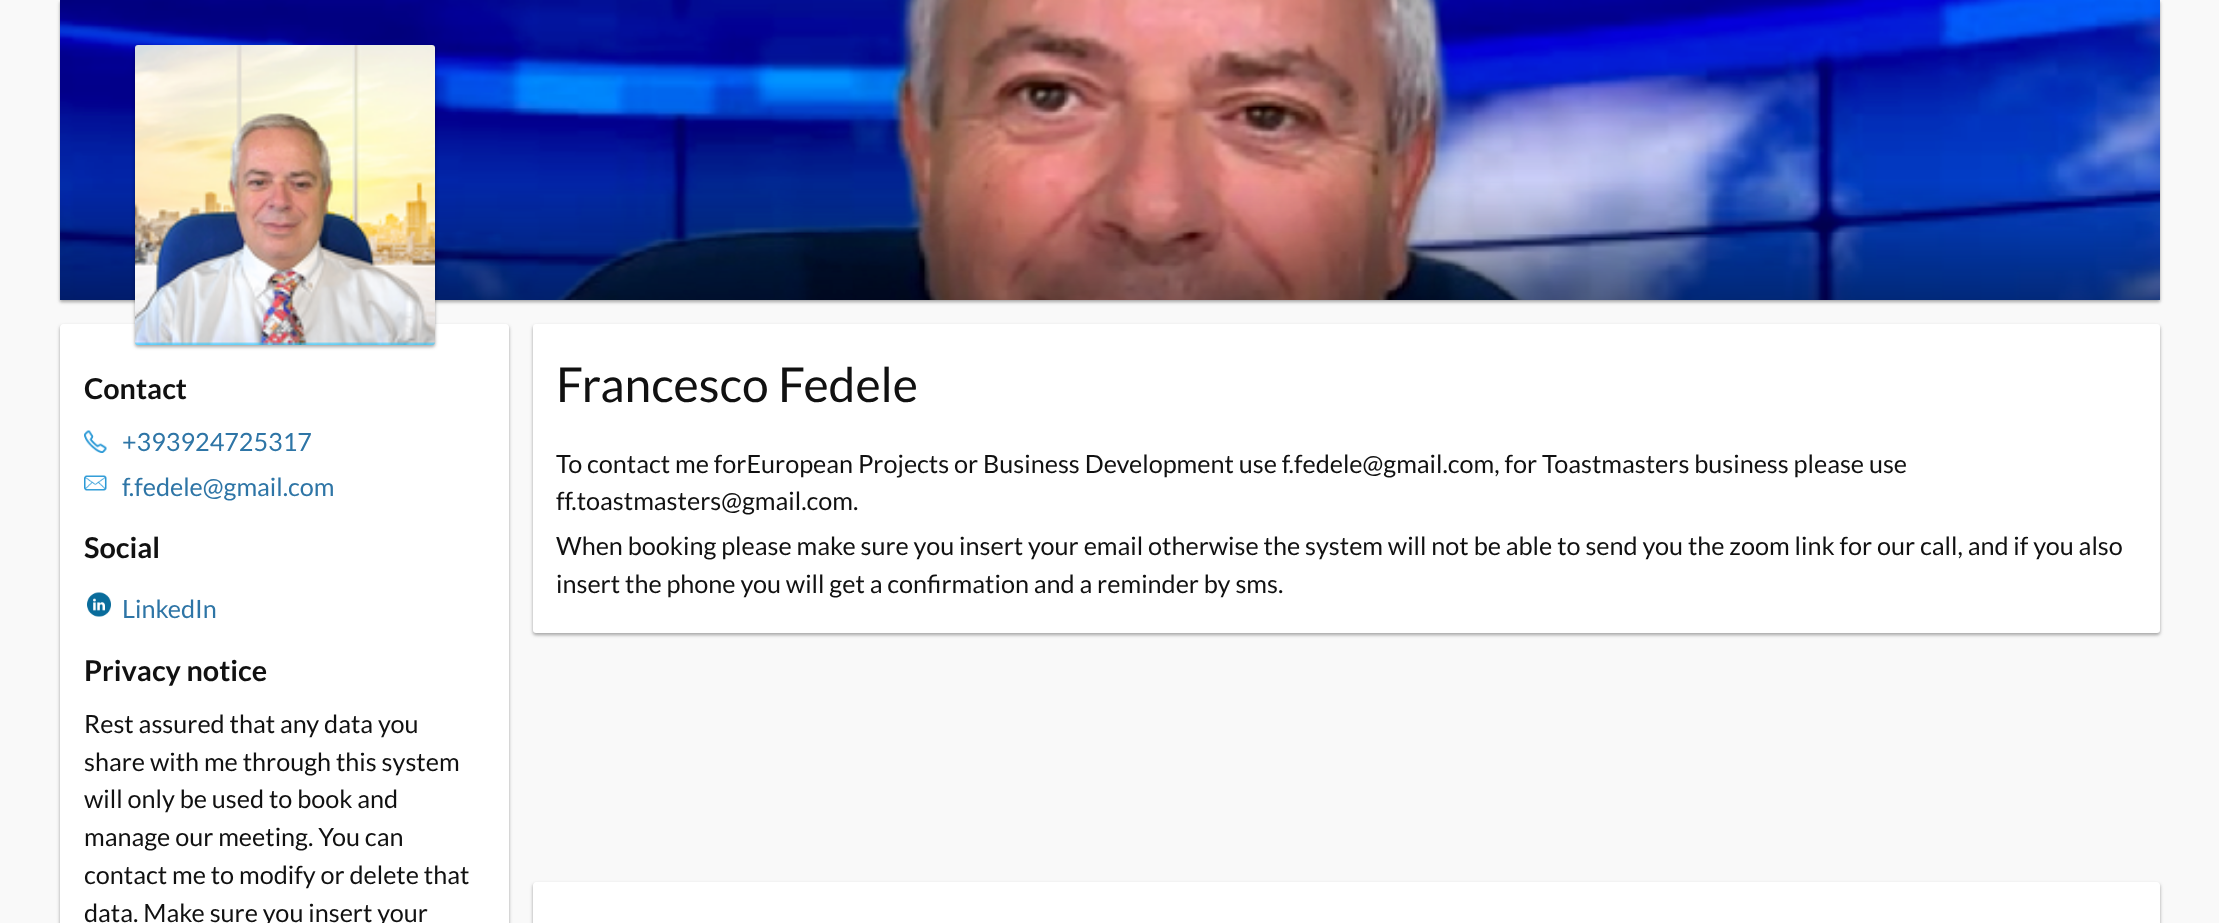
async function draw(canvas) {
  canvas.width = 2219
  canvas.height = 923
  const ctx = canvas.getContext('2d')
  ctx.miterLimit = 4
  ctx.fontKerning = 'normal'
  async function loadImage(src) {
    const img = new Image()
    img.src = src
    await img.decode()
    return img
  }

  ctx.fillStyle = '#f9f9f9'
  ctx.fillRect(0, 0, 2219, 923)
  ctx.fillStyle = '#0000003d'
  ctx.filter = 'blur(1.5px)'
  ctx.beginPath()
  ctx.rect(60, 2, 2100, 300)
  ctx.fill()
  ctx.filter = 'none'
  ctx.fillStyle = '#0000001f'
  ctx.filter = 'blur(2px)'
  ctx.beginPath()
  ctx.rect(60, 2, 2100, 300)
  ctx.fill()
  ctx.filter = 'none'
  ctx.drawImage(await loadImage('image0.png'), 60, 0, 2100, 300)
  ctx.fillStyle = '#0000003d'
  ctx.filter = 'blur(1.5px)'
  ctx.beginPath()
  ctx.roundRect(60, 326, 449, 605, 3)
  ctx.fill()
  ctx.filter = 'none'
  ctx.fillStyle = '#0000001f'
  ctx.filter = 'blur(2px)'
  ctx.beginPath()
  ctx.roundRect(60, 326, 449, 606, 3)
  ctx.fill()
  ctx.filter = 'none'
  ctx.fillStyle = '#fff'
  ctx.beginPath()
  ctx.moveTo(63, 324)
  ctx.lineTo(506, 324)
  ctx.bezierCurveTo(507.5, 324, 509, 325.5, 509, 327)
  ctx.lineTo(509, 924)
  ctx.lineTo(60, 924)
  ctx.lineTo(60, 327)
  ctx.bezierCurveTo(60, 325.5, 61.5, 324, 63, 324)
  ctx.closePath()
  ctx.fill()
  ctx.fillStyle = '#0000001f'
  ctx.filter = 'blur(2px)'
  ctx.beginPath()
  ctx.roundRect(135, 47, 300, 300, 3)
  ctx.fill()
  ctx.filter = 'none'
  ctx.fillStyle = '#0000003d'
  ctx.filter = 'blur(1.5px)'
  ctx.beginPath()
  ctx.roundRect(135, 47, 300, 300, 3)
  ctx.fill()
  ctx.filter = 'none'
  ctx.drawImage(await loadImage('image1.png'), 135, 45, 300, 300)
  ctx.font = 'bold 28.75px Lato'
  ctx.fillStyle = '#111'
  ctx.fillText('Contact', 84, 399)
  ctx.drawImage(await loadImage('image2.png'), 84, 430, 23, 23)
  ctx.font = '25.2px Lato'
  ctx.fillStyle = '#2e75a6'
  ctx.fillText('+393924725317', 122, 451)
  ctx.drawImage(await loadImage('image3.png'), 84, 475, 23, 16)
  ctx.fillText('f.fedele@gmail.com', 122, 496)
  ctx.font = 'bold 28.75px Lato'
  ctx.fillStyle = '#111'
  ctx.fillText('Social', 84, 558)
  ctx.drawImage(await loadImage('image4.png'), 87, 592, 24, 25)
  ctx.font = '25.2px Lato'
  ctx.fillStyle = '#2e75a6'
  ctx.fillText('LinkedIn', 122, 618)
  ctx.font = 'bold 28.75px Lato'
  ctx.fillStyle = '#111'
  ctx.fillText('Privacy notice', 84, 681)
  ctx.font = '25.2px Lato'
  ctx.fillText('Rest assured that any data you', 84, 733)
  ctx.fillText('share with me through this system', 84, 771)
  ctx.fillText('will only be used to book and', 84, 808)
  ctx.fillText('manage our meeting. You can', 84, 846)
  ctx.fillText('contact me to modify or delete that', 84, 884)
  ctx.fillText('data. Make sure you insert your', 84, 922)
  ctx.fillStyle = '#0000003d'
  ctx.filter = 'blur(1.5px)'
  ctx.beginPath()
  ctx.roundRect(533, 326, 1627, 309, 3)
  ctx.fill()
  ctx.filter = 'none'
  ctx.fillStyle = '#0000001f'
  ctx.filter = 'blur(2px)'
  ctx.beginPath()
  ctx.roundRect(533, 326, 1627, 309, 3)
  ctx.fill()
  ctx.filter = 'none'
  ctx.fillStyle = '#fff'
  ctx.beginPath()
  ctx.roundRect(533, 324, 1627, 309, 3)
  ctx.fill()
  ctx.font = '48px Lato'
  ctx.fillStyle = '#111'
  ctx.fillText('Francesco Fedele', 556, 402)
  ctx.font = '25.2px Lato'
  ctx.fillText('To contact me forEuropean Projects or Business Development use f.fedele@gmail.com, for Toastmasters business please use', 556, 473)
  ctx.fillText('ff.toastmasters@gmail.com.', 556, 510)
  ctx.fillText('When booking please make sure you insert your email otherwise the system will not be able to send you the zoom link for our call, and if you also', 556, 555)
  ctx.fillText('insert the phone you will get a confirmation and a reminder by sms.', 556, 593)
  ctx.fillStyle = '#0000003d'
  ctx.filter = 'blur(1.5px)'
  ctx.beginPath()
  ctx.roundRect(533, 884, 1627, 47, 3)
  ctx.fill()
  ctx.filter = 'none'
  ctx.fillStyle = '#0000001f'
  ctx.filter = 'blur(2px)'
  ctx.beginPath()
  ctx.roundRect(533, 884, 1627, 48, 3)
  ctx.fill()
  ctx.filter = 'none'
  ctx.fillStyle = '#fff'
  ctx.beginPath()
  ctx.moveTo(536, 882)
  ctx.lineTo(2157, 882)
  ctx.bezierCurveTo(2158.5, 882, 2160, 883.5, 2160, 885)
  ctx.lineTo(2160, 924)
  ctx.lineTo(533, 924)
  ctx.lineTo(533, 885)
  ctx.bezierCurveTo(533, 883.5, 534.5, 882, 536, 882)
  ctx.closePath()
  ctx.fill()
}

draw(document.querySelector('canvas'))
